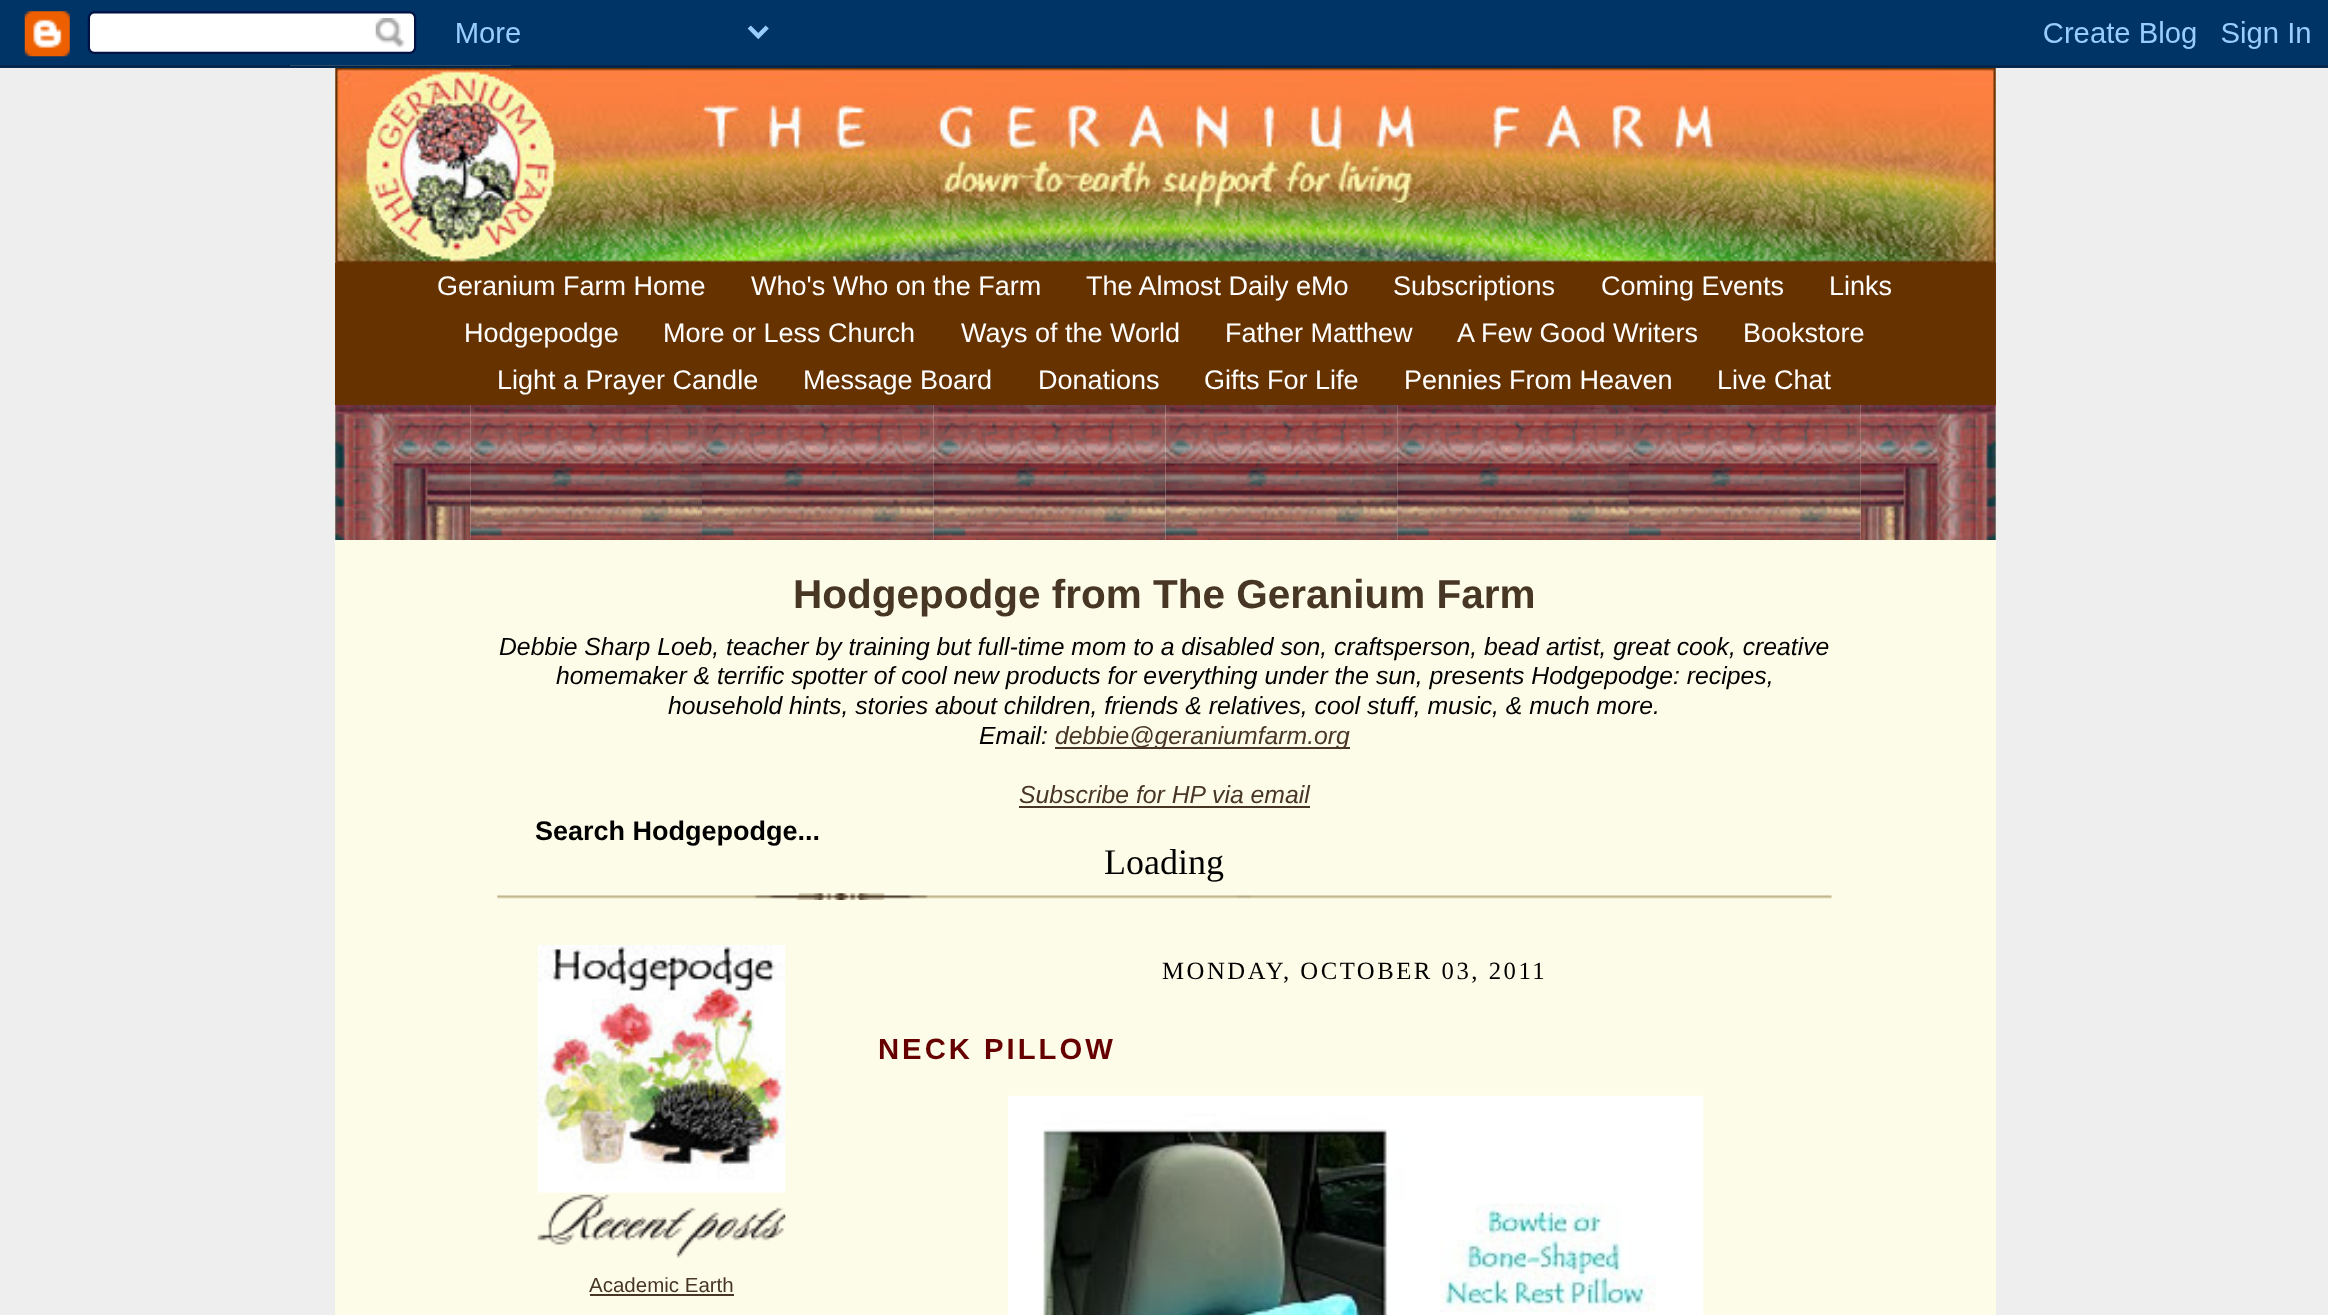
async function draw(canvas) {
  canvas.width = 2328
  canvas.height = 1315
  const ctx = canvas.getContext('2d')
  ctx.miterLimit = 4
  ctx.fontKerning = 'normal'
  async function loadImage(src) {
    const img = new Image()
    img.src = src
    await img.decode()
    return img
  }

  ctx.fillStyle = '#eee'
  ctx.fillRect(0, 0, 2328, 1315)
  ctx.fillStyle = '#fdfce8'
  ctx.fillRect(335, 65, 1661, 1250)
  ctx.drawImage(await loadImage('image0.png'), 0, 0, 2328, 68)
  ctx.fillStyle = '#630'
  ctx.fillRect(335, 263, 1661, 142)
  ctx.drawImage(await loadImage('image1.png'), 335, 68, 1661, 196)
  ctx.font = '27px Liberation Sans'
  ctx.fillStyle = '#fff'
  ctx.fillText('Geranium Farm Home', 437, 295)
  ctx.fillText('Who\'s Who on the Farm', 751, 295)
  ctx.fillText('The Almost Daily eMo', 1086, 295)
  ctx.fillText('Subscriptions', 1393, 295)
  ctx.fillText('Coming Events', 1601, 295)
  ctx.fillText('Links', 1829, 295)
  ctx.fillText('Hodgepodge', 464, 342)
  ctx.fillText('More or Less Church', 663, 342)
  ctx.fillText('Ways of the World', 961, 342)
  ctx.fillText('Father Matthew', 1225, 342)
  ctx.fillText('A Few Good Writers', 1457, 342)
  ctx.fillText('Bookstore', 1743, 342)
  ctx.fillText('Light a Prayer Candle', 497, 389)
  ctx.fillText('Message Board', 803, 389)
  ctx.fillText('Donations', 1038, 389)
  ctx.fillText('Gifts For Life', 1204, 389)
  ctx.fillText('Pennies From Heaven', 1404, 389)
  ctx.fillText('Live Chat', 1717, 389)
  ctx.drawImage(await loadImage('image2.png'), 335, 405, 136, 135)
  ctx.drawImage(await loadImage('image3.png'), 470, 405, 232, 135)
  ctx.drawImage(await loadImage('image4.png'), 702, 405, 232, 135)
  ctx.drawImage(await loadImage('image5.png'), 933, 405, 233, 135)
  ctx.drawImage(await loadImage('image6.png'), 1165, 405, 233, 135)
  ctx.drawImage(await loadImage('image7.png'), 1397, 405, 232, 135)
  ctx.drawImage(await loadImage('image8.png'), 1629, 405, 232, 135)
  ctx.drawImage(await loadImage('image9.png'), 1860, 405, 136, 135)
  ctx.font = 'bold 40.5px Liberation Sans'
  ctx.fillStyle = '#473624'
  ctx.fillText('Hodgepodge from The Geranium Farm', 793, 608)
  ctx.font = 'italic 24.75px Liberation Sans'
  ctx.fillStyle = '#000'
  ctx.fillText('Debbie Sharp Loeb, teacher by training but full-time mom to a disabled son, craftsperson, bead artist, great cook, creative', 499, 655)
  ctx.fillText('homemaker & terrific spotter of cool new products for everything under the sun, presents Hodgepodge: recipes,', 556, 684)
  ctx.fillText('household hints, stories about children, friends & relatives, cool stuff, music, & much more.', 668, 714)
  ctx.fillText('Email:', 979, 744)
  ctx.fillStyle = '#473624'
  ctx.fillRect(1055, 747, 295, 2)
  ctx.fillText('debbie@geraniumfarm.org', 1055, 744)
  ctx.fillText('Subscribe for HP via email', 1019, 803)
  ctx.fillRect(1019, 806, 291, 2)
  ctx.font = 'bold 27px Liberation Sans'
  ctx.fillStyle = '#000'
  ctx.fillText('Search Hodgepodge...', 535, 840)
  ctx.font = '36px Liberation Serif'
  ctx.fillText('Loading', 1104, 874)
  ctx.drawImage(await loadImage('image10.png'), 497, 893, 1335, 7)
  ctx.letterSpacing = '2.5px'
  ctx.font = '24.75px Liberation Serif'
  ctx.fillText('MONDAY, OCTOBER 03, 2011', 1162, 979)
  ctx.letterSpacing = '3px'
  ctx.font = 'bold 29.25px Liberation Sans'
  ctx.fillStyle = '#600'
  ctx.fillText('NECK PILLOW', 878, 1059)
  ctx.drawImage(await loadImage('image11.png'), 1008, 1095, 696, 220)
  ctx.drawImage(await loadImage('image12.png'), 537, 945, 249, 248)
  ctx.drawImage(await loadImage('image13.png'), 537, 1194, 249, 64)
  ctx.letterSpacing = '0px'
  ctx.font = '20.5px Liberation Sans'
  ctx.fillStyle = '#473624'
  ctx.fillText('Academic Earth', 589, 1292)
  ctx.fillRect(590, 1294, 144, 2)
}

draw(document.querySelector('canvas'))
